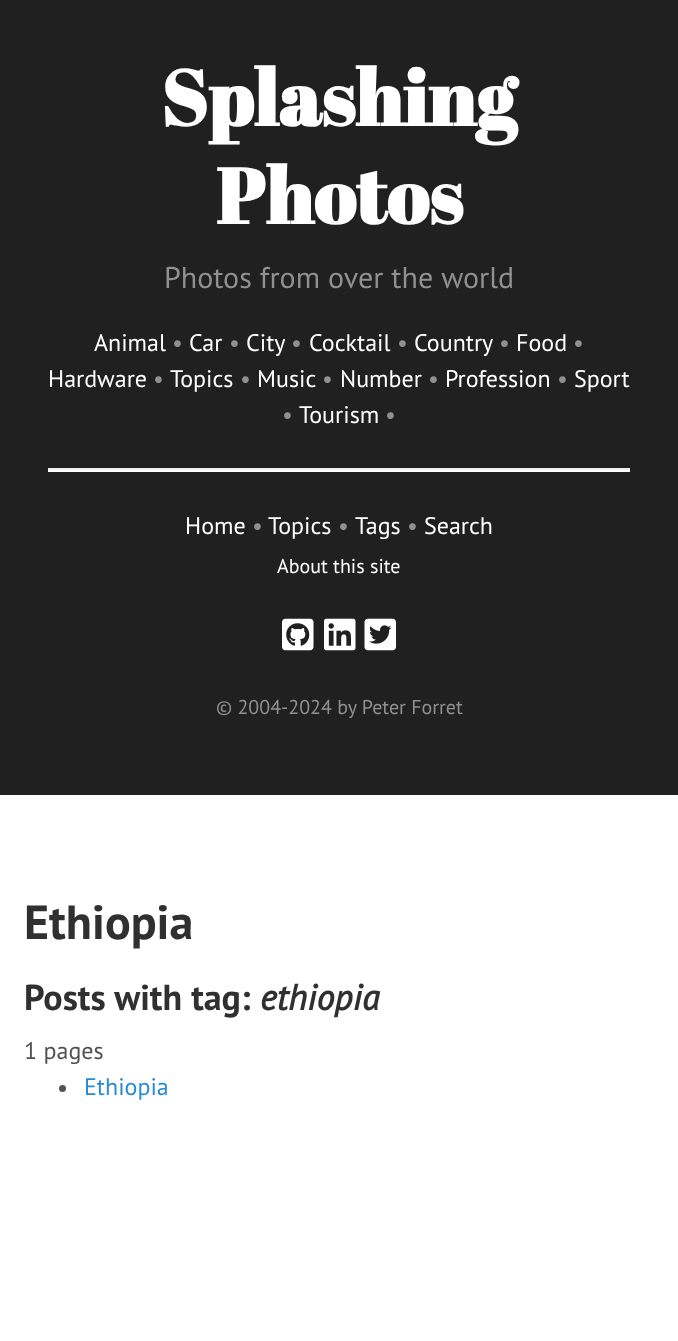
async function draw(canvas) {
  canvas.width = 678
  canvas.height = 1341
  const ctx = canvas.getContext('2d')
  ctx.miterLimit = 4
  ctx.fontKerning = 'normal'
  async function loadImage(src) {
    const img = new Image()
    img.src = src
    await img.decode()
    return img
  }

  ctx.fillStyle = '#fff'
  ctx.fillRect(0, 0, 678, 1341)
  ctx.fillStyle = '#202020'
  ctx.fillRect(0, 0, 678, 795)
  ctx.font = 'bold 78px Abril Fatface'
  ctx.fillStyle = '#fff'
  ctx.fillText('Splashing', 161, 126)
  ctx.fillText('Photos', 216, 224)
  ctx.font = '30px PT Sans'
  ctx.fillStyle = '#909090'
  ctx.fillText('Photos from over the world', 164, 288)
  ctx.font = '24px PT Sans'
  ctx.fillStyle = '#fff'
  ctx.fillText('Animal', 94, 351)
  ctx.fillStyle = '#909090'
  ctx.fillText('•', 172, 351)
  ctx.fillStyle = '#fff'
  ctx.fillText('Car', 189, 351)
  ctx.fillStyle = '#909090'
  ctx.fillText('•', 229, 351)
  ctx.fillStyle = '#fff'
  ctx.fillText('City', 246, 351)
  ctx.fillStyle = '#909090'
  ctx.fillText('•', 291, 351)
  ctx.fillStyle = '#fff'
  ctx.fillText('Cocktail', 309, 351)
  ctx.fillStyle = '#909090'
  ctx.fillText('•', 397, 351)
  ctx.fillStyle = '#fff'
  ctx.fillText('Country', 414, 351)
  ctx.fillStyle = '#909090'
  ctx.fillText('•', 499, 351)
  ctx.fillStyle = '#fff'
  ctx.fillText('Food', 516, 351)
  ctx.fillStyle = '#909090'
  ctx.fillText('•', 573, 351)
  ctx.fillStyle = '#fff'
  ctx.fillText('Hardware', 48, 387)
  ctx.fillStyle = '#909090'
  ctx.fillText('•', 153, 387)
  ctx.fillStyle = '#fff'
  ctx.fillText('Topics', 170, 387)
  ctx.fillStyle = '#909090'
  ctx.fillText('•', 240, 387)
  ctx.fillStyle = '#fff'
  ctx.fillText('Music', 257, 387)
  ctx.fillStyle = '#909090'
  ctx.fillText('•', 322, 387)
  ctx.fillStyle = '#fff'
  ctx.fillText('Number', 340, 387)
  ctx.fillStyle = '#909090'
  ctx.fillText('•', 428, 387)
  ctx.fillStyle = '#fff'
  ctx.fillText('Profession', 445, 387)
  ctx.fillStyle = '#909090'
  ctx.fillText('•', 557, 387)
  ctx.fillStyle = '#fff'
  ctx.fillText('Sport', 574, 387)
  ctx.fillStyle = '#909090'
  ctx.fillText('•', 282, 423)
  ctx.fillStyle = '#fff'
  ctx.fillText('Tourism', 299, 423)
  ctx.fillStyle = '#909090'
  ctx.fillText('•', 385, 423)
  ctx.fillStyle = '#eee'
  ctx.fillRect(48, 468, 582, 2)
  ctx.fillStyle = '#fff'
  ctx.fillRect(48, 470, 582, 2)
  ctx.fillText('Home', 185, 534)
  ctx.fillStyle = '#909090'
  ctx.fillText('•', 252, 534)
  ctx.fillStyle = '#fff'
  ctx.fillText('Topics', 268, 534)
  ctx.fillStyle = '#909090'
  ctx.fillText('•', 338, 534)
  ctx.fillStyle = '#fff'
  ctx.fillText('Tags', 355, 534)
  ctx.fillStyle = '#909090'
  ctx.fillText('•', 407, 534)
  ctx.fillStyle = '#fff'
  ctx.fillText('Search', 424, 534)
  ctx.font = '20px PT Sans'
  ctx.fillText('About this site', 277, 573)
  ctx.drawImage(await loadImage('image0.png'), 282, 618, 32, 33)
  ctx.drawImage(await loadImage('image1.png'), 324, 618, 32, 33)
  ctx.drawImage(await loadImage('image2.png'), 364, 618, 32, 33)
  ctx.fillStyle = '#909090'
  ctx.fillText('© 2004-2024 by Peter Forret', 216, 714)
  ctx.font = 'bold 48px PT Sans'
  ctx.fillStyle = '#303030'
  ctx.fillText('Ethiopia', 24, 939)
  ctx.font = 'bold 36px PT Sans'
  ctx.fillText('Posts with tag:', 24, 1010)
  ctx.font = 'italic bold 36px PT Sans'
  ctx.fillText('ethiopia', 260, 1010)
  ctx.font = '24px PT Sans'
  ctx.fillStyle = '#515151'
  ctx.fillText('1 pages', 24, 1059)
  ctx.beginPath()
  ctx.arc(62.5, 1088.5, 3.5, 0, 2 * Math.PI)
  ctx.fill()
  ctx.fillStyle = '#268bd2'
  ctx.fillText('Ethiopia', 84, 1095)
}

draw(document.querySelector('canvas'))
